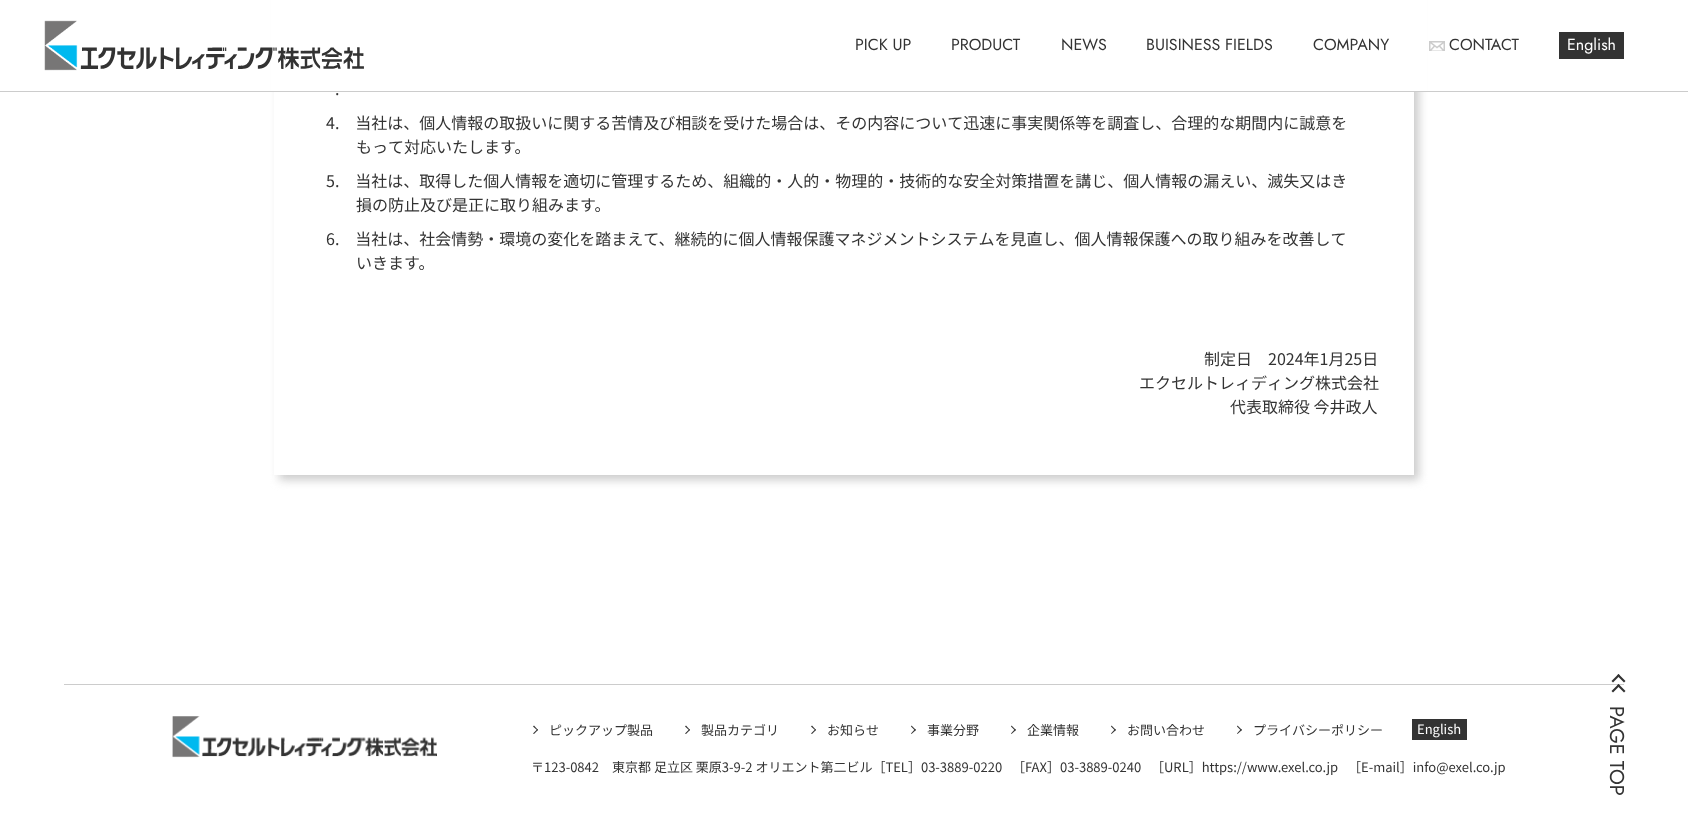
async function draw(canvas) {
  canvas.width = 1688
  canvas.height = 816
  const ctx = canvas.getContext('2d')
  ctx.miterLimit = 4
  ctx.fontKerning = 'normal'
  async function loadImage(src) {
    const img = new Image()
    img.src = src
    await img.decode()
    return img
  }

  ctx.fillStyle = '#fff'
  ctx.fillRect(0, 0, 1688, 816)
  ctx.save()
  ctx.beginPath()
  ctx.moveTo(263, 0)
  ctx.lineTo(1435, 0)
  ctx.lineTo(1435, 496)
  ctx.lineTo(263, 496)
  ctx.closePath()
  ctx.moveTo(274, -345)
  ctx.lineTo(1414, -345)
  ctx.lineTo(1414, 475)
  ctx.lineTo(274, 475)
  ctx.closePath()
  ctx.clip('evenodd')
  ctx.fillStyle = '#ccc'
  ctx.filter = 'blur(5px)'
  ctx.beginPath()
  ctx.rect(279, -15, 1140, 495)
  ctx.fill()
  ctx.filter = 'none'
  ctx.restore()
  ctx.fillRect(271, 0, 1156, 91)
  ctx.fillStyle = '#ccc'
  ctx.fillRect(0, 91, 1688, 1)
  ctx.drawImage(await loadImage('image0.png'), 44, 20, 320, 51)
  ctx.font = '16px Jost'
  ctx.fillStyle = '#333'
  ctx.fillText('PICK UP', 855, 50)
  ctx.fillText('PRODUCT', 951, 50)
  ctx.fillText('NEWS', 1061, 50)
  ctx.fillText('BUISINESS FIELDS', 1146, 50)
  ctx.fillText('COMPANY', 1313, 50)
  ctx.drawImage(await loadImage('image1.png'), 1429, 41, 16, 10)
  ctx.fillText('CONTACT', 1449, 50)
  ctx.fillRect(1559, 32, 65, 27)
  ctx.fillStyle = '#fff'
  ctx.fillText('English', 1567, 50)
  ctx.font = '16px Noto Sans JP'
  ctx.fillStyle = '#333'
  ctx.fillText('.', 335, 95)
  ctx.fillText('4.　当社は、個人情報の取扱いに関する苦情及び相談を受けた場合は、その内容について迅速に事実関係等を調査し、合理的な期間内に誠意を', 326, 129)
  ctx.fillText('もって対応いたします。', 356, 153)
  ctx.fillText('5.　当社は、取得した個人情報を適切に管理するため、組織的・人的・物理的・技術的な安全対策措置を講じ、個人情報の漏えい、滅失又はき', 326, 187)
  ctx.fillText('損の防止及び是正に取り組みます。', 356, 211)
  ctx.fillText('6.　当社は、社会情勢・環境の変化を踏まえて、継続的に個人情報保護マネジメントシステムを見直し、個人情報保護への取り組みを改善して', 326, 245)
  ctx.fillText('いきます。', 356, 269)
  ctx.fillText('制定日　2024年1月25日', 1204, 365)
  ctx.fillText('エクセルトレィディング株式会社', 1139, 389)
  ctx.fillText('代表取締役 今井政人', 1230, 413)
  ctx.fillStyle = '#ccc'
  ctx.fillRect(64, 684, 1560, 1)
  ctx.drawImage(await loadImage('image2.png'), 172, 716, 265, 42)
  ctx.fillStyle = '#333'
  ctx.beginPath()
  ctx.moveTo(534, 725.5)
  ctx.lineTo(538, 730)
  ctx.lineTo(537.5, 730.5)
  ctx.lineTo(533, 726.5)
  ctx.closePath()
  ctx.fill()
  ctx.beginPath()
  ctx.moveTo(537.5, 729)
  ctx.lineTo(538, 730)
  ctx.lineTo(534, 734)
  ctx.lineTo(533, 733.5)
  ctx.closePath()
  ctx.fill()
  ctx.font = '13px Noto Sans JP'
  ctx.fillText('ピックアップ製品', 549, 735)
  ctx.beginPath()
  ctx.moveTo(686, 725.5)
  ctx.lineTo(690, 730)
  ctx.lineTo(689.5, 730.5)
  ctx.lineTo(685, 726.5)
  ctx.closePath()
  ctx.fill()
  ctx.beginPath()
  ctx.moveTo(689.5, 729)
  ctx.lineTo(690, 730)
  ctx.lineTo(686, 734)
  ctx.lineTo(685, 733.5)
  ctx.closePath()
  ctx.fill()
  ctx.fillText('製品カテゴリ', 701, 735)
  ctx.beginPath()
  ctx.moveTo(812, 725.5)
  ctx.lineTo(816, 730)
  ctx.lineTo(815.5, 730.5)
  ctx.lineTo(811, 726.5)
  ctx.closePath()
  ctx.fill()
  ctx.beginPath()
  ctx.moveTo(815.5, 729)
  ctx.lineTo(816, 730)
  ctx.lineTo(812, 734)
  ctx.lineTo(811, 733.5)
  ctx.closePath()
  ctx.fill()
  ctx.fillText('お知らせ', 827, 735)
  ctx.beginPath()
  ctx.moveTo(911.5, 725.5)
  ctx.lineTo(916, 730)
  ctx.lineTo(915, 730.5)
  ctx.lineTo(911, 726.5)
  ctx.closePath()
  ctx.fill()
  ctx.beginPath()
  ctx.moveTo(915, 729)
  ctx.lineTo(916, 730)
  ctx.lineTo(911.5, 734)
  ctx.lineTo(911, 733.5)
  ctx.closePath()
  ctx.fill()
  ctx.fillText('事業分野', 927, 735)
  ctx.beginPath()
  ctx.moveTo(1011.5, 725.5)
  ctx.lineTo(1016, 730)
  ctx.lineTo(1015, 730.5)
  ctx.lineTo(1011, 726.5)
  ctx.closePath()
  ctx.fill()
  ctx.beginPath()
  ctx.moveTo(1015, 729)
  ctx.lineTo(1016, 730)
  ctx.lineTo(1011.5, 734)
  ctx.lineTo(1011, 733.5)
  ctx.closePath()
  ctx.fill()
  ctx.fillText('企業情報', 1027, 735)
  ctx.beginPath()
  ctx.moveTo(1111.5, 725.5)
  ctx.lineTo(1116, 730)
  ctx.lineTo(1115, 730.5)
  ctx.lineTo(1111, 726.5)
  ctx.closePath()
  ctx.fill()
  ctx.beginPath()
  ctx.moveTo(1115, 729)
  ctx.lineTo(1116, 730)
  ctx.lineTo(1111.5, 734)
  ctx.lineTo(1111, 733.5)
  ctx.closePath()
  ctx.fill()
  ctx.fillText('お問い合わせ', 1127, 735)
  ctx.beginPath()
  ctx.moveTo(1237.5, 725.5)
  ctx.lineTo(1242, 730)
  ctx.lineTo(1241, 730.5)
  ctx.lineTo(1237, 726.5)
  ctx.closePath()
  ctx.fill()
  ctx.beginPath()
  ctx.moveTo(1241, 729)
  ctx.lineTo(1242, 730)
  ctx.lineTo(1237.5, 734)
  ctx.lineTo(1237, 733.5)
  ctx.closePath()
  ctx.fill()
  ctx.fillText('プライバシーポリシー', 1253, 735)
  ctx.fillRect(1412, 719, 55, 21)
  ctx.fillStyle = '#fff'
  ctx.fillText('English', 1417, 734)
  ctx.fillStyle = '#333'
  ctx.fillText('〒123-0842　東京都 足立区 栗原3-9-2 オリエント第二ビル［TEL］03-3889-0220', 531, 772)
  ctx.fillText('［FAX］03-3889-0240', 1012, 772)
  ctx.fillText('［URL］https://www.exel.co.jp', 1151, 772)
  ctx.fillText('［E-mail］info@exel.co.jp', 1348, 772)
  ctx.beginPath()
  ctx.moveTo(1611.5, 681)
  ctx.lineTo(1618.5, 674)
  ctx.lineTo(1620, 675.5)
  ctx.lineTo(1613, 682.5)
  ctx.closePath()
  ctx.fill()
  ctx.beginPath()
  ctx.moveTo(1617, 675.5)
  ctx.lineTo(1618.5, 674)
  ctx.lineTo(1625.5, 681)
  ctx.lineTo(1624, 682.5)
  ctx.closePath()
  ctx.moveTo(1611.5, 691)
  ctx.lineTo(1618.5, 684)
  ctx.lineTo(1620, 685.5)
  ctx.lineTo(1613, 692.5)
  ctx.closePath()
  ctx.fill()
  ctx.beginPath()
  ctx.moveTo(1617, 685.5)
  ctx.lineTo(1618.5, 684)
  ctx.lineTo(1625.5, 691)
  ctx.lineTo(1624, 692.5)
  ctx.closePath()
  ctx.fill()
  ctx.font = '20px Jost'
  ctx.save()
  ctx.translate(1610, 706)
  ctx.rotate(90 * Math.PI / 180)
  ctx.fillText('PAGE TOP', 0, 0)
  ctx.restore()
}

draw(document.querySelector('canvas'))
